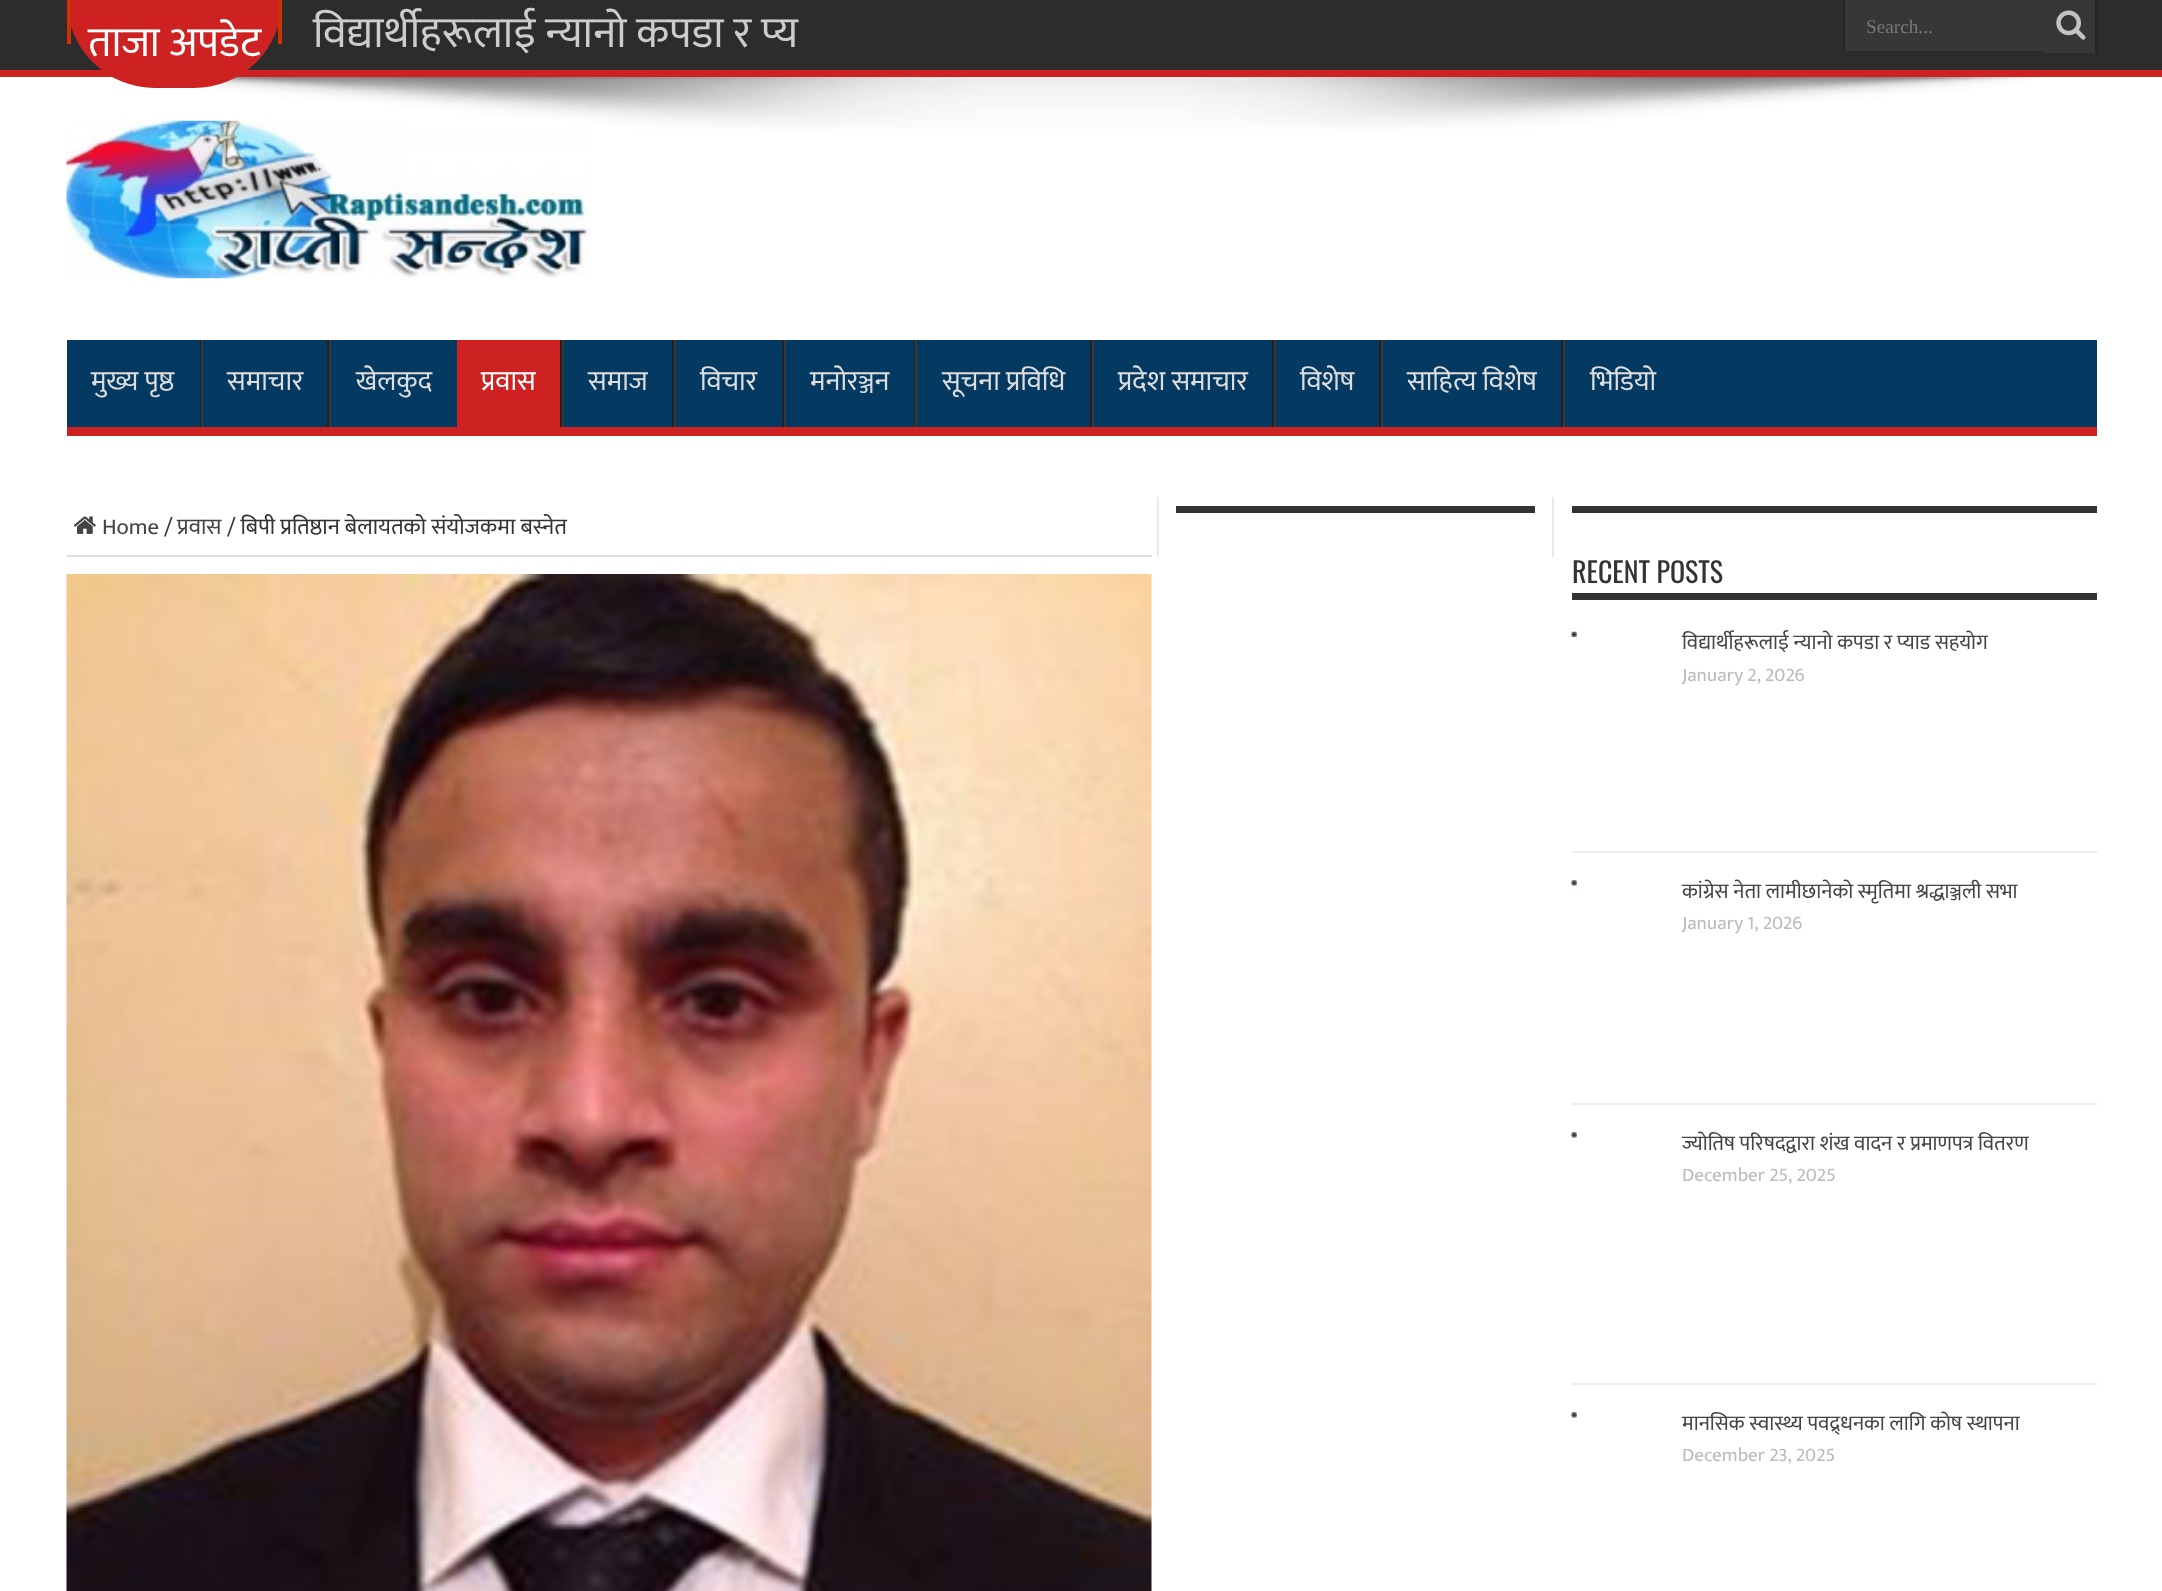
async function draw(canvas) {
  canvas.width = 2162
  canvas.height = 1591
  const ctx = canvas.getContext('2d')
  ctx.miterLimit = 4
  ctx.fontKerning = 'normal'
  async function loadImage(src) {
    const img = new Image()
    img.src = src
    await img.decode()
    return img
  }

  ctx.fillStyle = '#fff'
  ctx.fillRect(0, 0, 2162, 1591)
  ctx.fillStyle = '#2c2c2c'
  ctx.fillRect(0, 0, 2162, 70)
  ctx.fillStyle = '#cd2122'
  ctx.fillRect(0, 70, 2162, 7)
  ctx.drawImage(await loadImage('image1.png'), 207, 77, 1834, 52)
  ctx.beginPath()
  ctx.roundRect(67, 0, 215, 88, [0, 0, 88, 88])
  ctx.fill()
  ctx.fillStyle = '#c30'
  ctx.fillRect(278, 0, 4, 44)
  ctx.fillRect(67, 0, 4, 44)
  ctx.font = '42px Mukta'
  ctx.fillStyle = '#fff'
  ctx.fillText('ताजा अपडेट', 88, 56)
  ctx.font = '43.75px Mukta'
  ctx.fillStyle = '#ccc'
  ctx.fillText('विद्यार्थीहरूलाई न्यानो कपडा र प्य', 313, 47)
  ctx.fillStyle = '#373737'
  ctx.fillRect(1845, 0, 199, 51)
  ctx.fillStyle = '#252525'
  ctx.fillRect(1843, 0, 2, 51)
  ctx.font = '19.25px Liberation Serif'
  ctx.fillStyle = '#787878'
  ctx.fillText('Search...', 1866, 33)
  ctx.fillStyle = '#373737'
  ctx.fillRect(2044, 0, 51, 53)
  ctx.fillStyle = '#252525'
  ctx.fillRect(2095, 0, 2, 53)
  ctx.drawImage(await loadImage('image0.png'), 2056, 10, 30, 30)
  ctx.drawImage(await loadImage('image2.png'), 66, 120, 526, 159)
  ctx.fillStyle = '#043961'
  ctx.fillRect(67, 340, 2030, 87)
  ctx.fillStyle = '#cd2122'
  ctx.fillRect(67, 427, 2030, 9)
  ctx.font = '28px Mukta'
  ctx.fillStyle = '#ddd'
  ctx.fillText('मुख्य पृष्ठ', 91, 390)
  ctx.fillStyle = '#222'
  ctx.fillRect(200, 340, 1, 87)
  ctx.fillStyle = '#383838'
  ctx.fillRect(201, 340, 2, 87)
  ctx.fillStyle = '#ddd'
  ctx.fillText('समाचार', 227, 390)
  ctx.fillStyle = '#222'
  ctx.fillRect(327, 340, 2, 87)
  ctx.fillStyle = '#383838'
  ctx.fillRect(329, 340, 2, 87)
  ctx.fillStyle = '#ddd'
  ctx.fillText('खेलकुद', 356, 390)
  ctx.fillStyle = '#cd2122'
  ctx.fillRect(457, 340, 103, 87)
  ctx.fillStyle = '#fff'
  ctx.fillText('प्रवास', 481, 390)
  ctx.fillStyle = '#222'
  ctx.fillRect(560, 340, 2, 87)
  ctx.fillStyle = '#383838'
  ctx.fillRect(562, 340, 2, 87)
  ctx.fillStyle = '#ddd'
  ctx.fillText('समाज', 588, 390)
  ctx.fillStyle = '#222'
  ctx.fillRect(672, 340, 2, 87)
  ctx.fillStyle = '#383838'
  ctx.fillRect(674, 340, 2, 87)
  ctx.fillStyle = '#ddd'
  ctx.fillText('विचार', 700, 390)
  ctx.fillStyle = '#222'
  ctx.fillRect(782, 340, 2, 87)
  ctx.fillStyle = '#383838'
  ctx.fillRect(784, 340, 2, 87)
  ctx.fillStyle = '#ddd'
  ctx.fillText('मनोरञ्जन', 810, 390)
  ctx.fillStyle = '#222'
  ctx.fillRect(914, 340, 1, 87)
  ctx.fillStyle = '#383838'
  ctx.fillRect(915, 340, 2, 87)
  ctx.fillStyle = '#ddd'
  ctx.fillText('सूचना प्रविधि', 942, 390)
  ctx.fillStyle = '#222'
  ctx.fillRect(1090, 340, 2, 87)
  ctx.fillStyle = '#383838'
  ctx.fillRect(1092, 340, 2, 87)
  ctx.fillStyle = '#ddd'
  ctx.fillText('प्रदेश समाचार', 1118, 390)
  ctx.fillStyle = '#222'
  ctx.fillRect(1272, 340, 2, 87)
  ctx.fillStyle = '#383838'
  ctx.fillRect(1274, 340, 2, 87)
  ctx.fillStyle = '#ddd'
  ctx.fillText('विशेष', 1300, 390)
  ctx.fillStyle = '#222'
  ctx.fillRect(1379, 340, 2, 87)
  ctx.fillStyle = '#383838'
  ctx.fillRect(1381, 340, 2, 87)
  ctx.fillStyle = '#ddd'
  ctx.fillText('साहित्य विशेष', 1407, 390)
  ctx.fillStyle = '#222'
  ctx.fillRect(1561, 340, 2, 87)
  ctx.fillStyle = '#383838'
  ctx.fillRect(1563, 340, 2, 87)
  ctx.fillStyle = '#ddd'
  ctx.fillText('भिडियो', 1590, 390)
  ctx.fillRect(67, 555, 1085, 2)
  ctx.drawImage(await loadImage('image3.png'), 73, 516, 23, 18)
  ctx.font = '22.75px Mukta'
  ctx.fillStyle = '#444'
  ctx.fillText('Home', 102, 534)
  ctx.fillStyle = '#333'
  ctx.fillText('/', 164, 534)
  ctx.fillStyle = '#444'
  ctx.fillText('प्रवास', 177, 534)
  ctx.fillStyle = '#333'
  ctx.fillText('/ बिपी प्रतिष्ठान बेलायतको संयोजकमा बस्नेत', 227, 534)
  ctx.drawImage(await loadImage('image4.png'), 66, 574, 1086, 1017)
  ctx.fillStyle = '#eaeaea'
  ctx.fillRect(1552, 497, 2, 60)
  ctx.fillRect(1157, 497, 2, 60)
  ctx.fillStyle = '#333'
  ctx.fillRect(1176, 506, 359, 7)
  ctx.fillRect(1572, 506, 525, 7)
  ctx.fillRect(1572, 593, 525, 7)
  ctx.font = '28px Oswald'
  ctx.fillText('RECENT POSTS', 1572, 583)
  ctx.drawImage(await loadImage('image5.png'), 1571, 631, 6, 6)
  ctx.fillStyle = '#eee'
  ctx.fillRect(1572, 851, 525, 2)
  ctx.font = '21px Mukta'
  ctx.fillStyle = '#444'
  ctx.fillText('विद्यार्थीहरूलाई न्यानो कपडा र प्याड सहयोग', 1682, 649)
  ctx.font = '19.25px Mukta'
  ctx.fillStyle = '#bbb'
  ctx.fillText('January 2, 2026', 1682, 681)
  ctx.drawImage(await loadImage('image6.png'), 1571, 880, 6, 6)
  ctx.fillStyle = '#eee'
  ctx.fillRect(1572, 1103, 525, 2)
  ctx.font = '21px Mukta'
  ctx.fillStyle = '#444'
  ctx.fillText('कांग्रेस नेता लामीछानेको स्मृतिमा श्रद्धाञ्जली सभा', 1682, 898)
  ctx.font = '19.25px Mukta'
  ctx.fillStyle = '#bbb'
  ctx.fillText('January 1, 2026', 1682, 929)
  ctx.drawImage(await loadImage('image6.png'), 1571, 1132, 6, 6)
  ctx.fillStyle = '#eee'
  ctx.fillRect(1572, 1383, 525, 2)
  ctx.font = '21px Mukta'
  ctx.fillStyle = '#444'
  ctx.fillText('ज्याेतिष परिषदद्वारा शंख वादन र प्रमाणपत्र वितरण', 1682, 1150)
  ctx.font = '19.25px Mukta'
  ctx.fillStyle = '#bbb'
  ctx.fillText('December 25, 2025', 1682, 1181)
  ctx.drawImage(await loadImage('image6.png'), 1571, 1412, 6, 6)
  ctx.font = '21px Mukta'
  ctx.fillStyle = '#444'
  ctx.fillText('मानसिक स्वास्थ्य पवद्र्धनका लागि कोष स्थापना', 1682, 1430)
  ctx.font = '19.25px Mukta'
  ctx.fillStyle = '#bbb'
  ctx.fillText('December 23, 2025', 1682, 1461)
}

draw(document.querySelector('canvas'))
